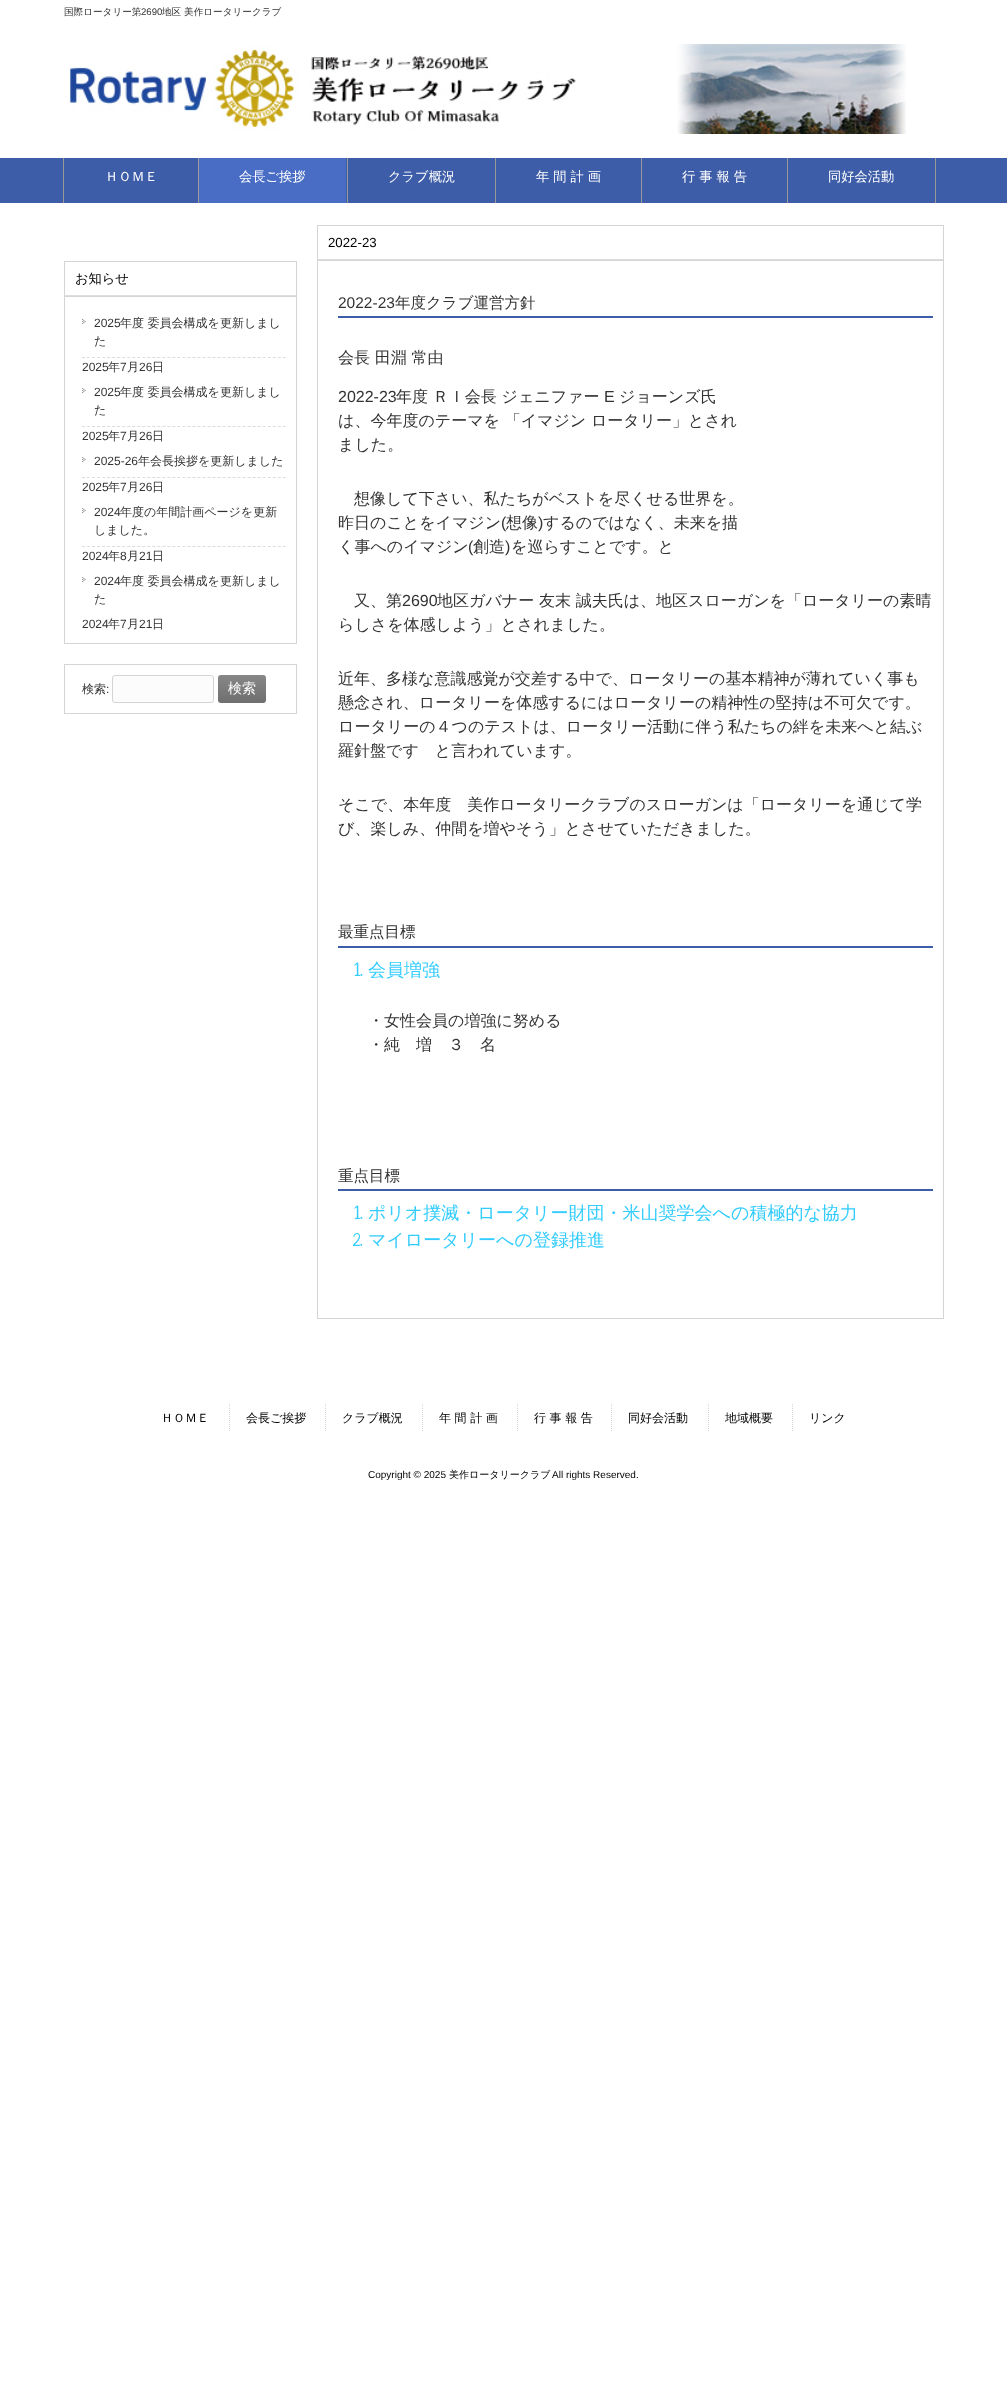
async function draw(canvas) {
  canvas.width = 1007
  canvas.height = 2399
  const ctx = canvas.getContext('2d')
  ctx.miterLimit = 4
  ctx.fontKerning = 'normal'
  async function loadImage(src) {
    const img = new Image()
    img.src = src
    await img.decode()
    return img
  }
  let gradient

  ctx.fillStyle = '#fff'
  ctx.fillRect(0, 0, 1007, 2399)
  ctx.font = '500 9.6px WenQuanYi Zen Hei'
  ctx.fillStyle = '#333'
  ctx.fillText('国際ロータリー第', 64, 15)
  ctx.font = '9.6px Liberation Sans'
  ctx.fillText('2690', 141, 15)
  ctx.font = '500 9.6px WenQuanYi Zen Hei'
  ctx.fillText('地区 美作ロータリークラブ', 162, 15)
  ctx.drawImage(await loadImage('image0.png'), 70, 44, 836, 90)
  ctx.fillStyle = '#3e5da8'
  ctx.fillRect(0, 158, 1007, 45)
  ctx.fillStyle = '#999'
  ctx.fillRect(63, 158, 1, 45)
  ctx.fillRect(198, 158, 1, 45)
  ctx.font = '500 13.25px WenQuanYi Zen Hei'
  ctx.fillStyle = '#fff'
  ctx.fillText('ＨＯＭＥ', 105, 181)
  ctx.fillStyle = '#999'
  ctx.fillRect(347, 158, 1, 45)
  ctx.fillStyle = '#496dc5'
  ctx.fillRect(199, 158, 147, 45)
  ctx.fillStyle = '#fff'
  ctx.fillText('会長ご挨拶', 239, 181)
  ctx.fillStyle = '#999'
  ctx.fillRect(495, 158, 1, 45)
  ctx.fillStyle = '#fff'
  ctx.fillText('クラブ概況', 388, 181)
  ctx.fillStyle = '#999'
  ctx.fillRect(641, 158, 1, 45)
  ctx.fillStyle = '#fff'
  ctx.fillText('年 間 計 画', 536, 181)
  ctx.fillStyle = '#999'
  ctx.fillRect(787, 158, 1, 45)
  ctx.fillStyle = '#fff'
  ctx.fillText('行 事 報 告', 682, 181)
  ctx.fillStyle = '#999'
  ctx.fillRect(935, 158, 1, 45)
  ctx.fillStyle = '#fff'
  ctx.fillText('同好会活動', 828, 181)
  ctx.fillStyle = '#ddd'
  ctx.fillRect(64, 295, 233, 1)
  ctx.fillStyle = '#d5d5d5'
  ctx.fillRect(64, 261, 233, 1)
  ctx.fillRect(296, 261, 1, 35)
  ctx.fillRect(64, 261, 1, 35)
  ctx.fillStyle = '#000'
  ctx.fillText('お知らせ', 75, 283)
  ctx.strokeStyle = '#d5d5d5'
  ctx.strokeRect(64.5, 296.5, 232, 347)
  ctx.drawImage(await loadImage('image1.png'), 82, 319, 4, 5)
  ctx.beginPath()
  ctx.moveTo(82, 357.5)
  ctx.lineTo(286, 357.5)
  ctx.strokeStyle = '#dcdcdc'
  ctx.setLineDash([3, 2.02])
  ctx.stroke()
  ctx.font = '12px Liberation Sans'
  ctx.fillStyle = '#333'
  ctx.fillText('2025', 94, 327)
  ctx.font = '500 12px WenQuanYi Zen Hei'
  ctx.fillText('年度 委員会構成を更新しまし', 120, 327)
  ctx.fillText('た', 94, 345)
  ctx.font = '12px Liberation Sans'
  ctx.fillText('2025', 82, 371)
  ctx.font = '500 12px WenQuanYi Zen Hei'
  ctx.fillText('年', 108, 371)
  ctx.font = '12px Liberation Sans'
  ctx.fillText('7', 120, 371)
  ctx.font = '500 12px WenQuanYi Zen Hei'
  ctx.fillText('月', 127, 371)
  ctx.font = '12px Liberation Sans'
  ctx.fillText('26', 139, 371)
  ctx.font = '500 12px WenQuanYi Zen Hei'
  ctx.fillText('日', 152, 371)
  ctx.drawImage(await loadImage('image1.png'), 82, 388, 4, 5)
  ctx.beginPath()
  ctx.moveTo(82, 426.5)
  ctx.lineTo(286, 426.5)
  ctx.stroke()
  ctx.font = '12px Liberation Sans'
  ctx.fillText('2025', 94, 396)
  ctx.font = '500 12px WenQuanYi Zen Hei'
  ctx.fillText('年度 委員会構成を更新しまし', 120, 396)
  ctx.fillText('た', 94, 414)
  ctx.font = '12px Liberation Sans'
  ctx.fillText('2025', 82, 440)
  ctx.font = '500 12px WenQuanYi Zen Hei'
  ctx.fillText('年', 108, 440)
  ctx.font = '12px Liberation Sans'
  ctx.fillText('7', 120, 440)
  ctx.font = '500 12px WenQuanYi Zen Hei'
  ctx.fillText('月', 127, 440)
  ctx.font = '12px Liberation Sans'
  ctx.fillText('26', 139, 440)
  ctx.font = '500 12px WenQuanYi Zen Hei'
  ctx.fillText('日', 152, 440)
  ctx.drawImage(await loadImage('image1.png'), 82, 457, 4, 5)
  ctx.beginPath()
  ctx.moveTo(82, 477.5)
  ctx.lineTo(286, 477.5)
  ctx.stroke()
  ctx.font = '12px Liberation Sans'
  ctx.fillText('2025-26', 94, 465)
  ctx.font = '500 12px WenQuanYi Zen Hei'
  ctx.fillText('年会長挨拶を更新しました', 138, 465)
  ctx.font = '12px Liberation Sans'
  ctx.fillText('2025', 82, 491)
  ctx.font = '500 12px WenQuanYi Zen Hei'
  ctx.fillText('年', 108, 491)
  ctx.font = '12px Liberation Sans'
  ctx.fillText('7', 120, 491)
  ctx.font = '500 12px WenQuanYi Zen Hei'
  ctx.fillText('月', 127, 491)
  ctx.font = '12px Liberation Sans'
  ctx.fillText('26', 139, 491)
  ctx.font = '500 12px WenQuanYi Zen Hei'
  ctx.fillText('日', 152, 491)
  ctx.drawImage(await loadImage('image1.png'), 82, 508, 4, 5)
  ctx.beginPath()
  ctx.moveTo(82, 546.5)
  ctx.lineTo(286, 546.5)
  ctx.stroke()
  ctx.font = '12px Liberation Sans'
  ctx.fillText('2024', 94, 516)
  ctx.font = '500 12px WenQuanYi Zen Hei'
  ctx.fillText('年度の年間計画ページを更新', 120, 516)
  ctx.fillText('しました。', 94, 534)
  ctx.font = '12px Liberation Sans'
  ctx.fillText('2024', 82, 560)
  ctx.font = '500 12px WenQuanYi Zen Hei'
  ctx.fillText('年', 108, 560)
  ctx.font = '12px Liberation Sans'
  ctx.fillText('8', 120, 560)
  ctx.font = '500 12px WenQuanYi Zen Hei'
  ctx.fillText('月', 127, 560)
  ctx.font = '12px Liberation Sans'
  ctx.fillText('21', 139, 560)
  ctx.font = '500 12px WenQuanYi Zen Hei'
  ctx.fillText('日', 152, 560)
  ctx.drawImage(await loadImage('image1.png'), 82, 577, 4, 5)
  ctx.font = '12px Liberation Sans'
  ctx.fillText('2024', 94, 585)
  ctx.font = '500 12px WenQuanYi Zen Hei'
  ctx.fillText('年度 委員会構成を更新しまし', 120, 585)
  ctx.fillText('た', 94, 603)
  ctx.font = '12px Liberation Sans'
  ctx.fillText('2024', 82, 628)
  ctx.font = '500 12px WenQuanYi Zen Hei'
  ctx.fillText('年', 108, 628)
  ctx.font = '12px Liberation Sans'
  ctx.fillText('7', 120, 628)
  ctx.font = '500 12px WenQuanYi Zen Hei'
  ctx.fillText('月', 127, 628)
  ctx.font = '12px Liberation Sans'
  ctx.fillText('21', 139, 628)
  ctx.font = '500 12px WenQuanYi Zen Hei'
  ctx.fillText('日', 152, 628)
  ctx.strokeStyle = '#d5d5d5'
  ctx.setLineDash([])
  ctx.strokeRect(64.5, 664.5, 232, 49)
  ctx.fillText('検索', 82, 693)
  ctx.font = '12px Liberation Sans'
  ctx.fillText(':', 106, 693)
  ctx.fillStyle = '#fcfcfc'
  ctx.beginPath()
  ctx.roundRect(112.5, 675.5, 101, 27, 2.5)
  ctx.fill()
  ctx.strokeStyle = '#d4d4d7'
  ctx.stroke()
  gradient = ctx.createLinearGradient(242, 675, 242, 703)
  gradient.addColorStop(0, '#878787')
  gradient.addColorStop(1, '#6f6f6f')
  ctx.fillStyle = gradient
  ctx.beginPath()
  ctx.roundRect(218, 675, 48, 28, 3)
  ctx.fill()
  ctx.font = '500 14px WenQuanYi Zen Hei'
  ctx.fillStyle = '#fff'
  ctx.fillText('検索', 228, 693)
  ctx.fillStyle = '#ddd'
  ctx.fillRect(317, 259, 627, 1)
  ctx.fillStyle = '#d5d5d5'
  ctx.fillRect(317, 225, 627, 1)
  ctx.fillRect(943, 225, 1, 35)
  ctx.fillRect(317, 225, 1, 35)
  ctx.font = '13.25px Liberation Sans'
  ctx.fillStyle = '#000'
  ctx.fillText('2022-23', 328, 247)
  ctx.strokeStyle = '#d5d5d5'
  ctx.strokeRect(317.5, 260.5, 626, 1058)
  ctx.fillStyle = '#3e5da8'
  ctx.fillRect(338, 316, 595, 2)
  ctx.font = '15.5px Liberation Sans'
  ctx.fillStyle = '#333'
  ctx.fillText('2022-23', 338, 308)
  ctx.font = '500 15.5px WenQuanYi Zen Hei'
  ctx.fillText('年度クラブ運営方針', 395, 308)
  ctx.font = '500 16px WenQuanYi Zen Hei'
  ctx.fillText('会長 田淵 常由', 338, 363)
  ctx.font = '16px Liberation Sans'
  ctx.fillText('2022-23', 338, 402)
  ctx.font = '500 16px WenQuanYi Zen Hei'
  ctx.fillText('年度 ＲＩ会長 ジェニファー', 396, 402)
  ctx.font = '16px Liberation Sans'
  ctx.fillText('E', 604, 402)
  ctx.font = '500 16px WenQuanYi Zen Hei'
  ctx.fillText('ジョーンズ氏', 619, 402)
  ctx.fillText('は、今年度のテーマを 「イマジン ロータリー」とされ', 338, 426)
  ctx.fillText('ました。', 338, 450)
  ctx.fillText('想像して下さい、私たちがベストを尽くせる世界を。', 354, 504)
  ctx.fillText('昨日のことをイマジン', 338, 528)
  ctx.font = '16px Liberation Sans'
  ctx.fillText('(', 501, 528)
  ctx.font = '500 16px WenQuanYi Zen Hei'
  ctx.fillText('想像', 506, 528)
  ctx.font = '16px Liberation Sans'
  ctx.fillText(')', 538, 528)
  ctx.font = '500 16px WenQuanYi Zen Hei'
  ctx.fillText('するのではなく、未来を描', 543, 528)
  ctx.fillText('く事へのイマジン', 338, 552)
  ctx.font = '16px Liberation Sans'
  ctx.fillText('(', 468, 552)
  ctx.font = '500 16px WenQuanYi Zen Hei'
  ctx.fillText('創造', 473, 552)
  ctx.font = '16px Liberation Sans'
  ctx.fillText(')', 505, 552)
  ctx.font = '500 16px WenQuanYi Zen Hei'
  ctx.fillText('を巡らすことです。と', 511, 552)
  ctx.fillText('又、第', 354, 606)
  ctx.font = '16px Liberation Sans'
  ctx.fillText('2690', 402, 606)
  ctx.font = '500 16px WenQuanYi Zen Hei'
  ctx.fillText('地区ガバナー 友末 誠夫氏は、地区スローガンを「ロータリーの素晴', 437, 606)
  ctx.fillText('らしさを体感しよう」とされました。', 338, 630)
  ctx.fillText('近年、多様な意識感覚が交差する中で、ロータリーの基本精神が薄れていく事も', 338, 684)
  ctx.fillText('懸念され、ロータリーを体感するにはロータリーの精神性の堅持は不可欠です。', 338, 708)
  ctx.fillText('ロータリーの４つのテストは、ロータリー活動に伴う私たちの絆を未来へと結ぶ', 338, 732)
  ctx.fillText('羅針盤です　と言われています。', 338, 756)
  ctx.fillText('そこで、本年度　美作ロータリークラブのスローガンは「ロータリーを通じて学', 338, 810)
  ctx.fillText('び、楽しみ、仲間を増やそう」とさせていただきました。', 338, 834)
  ctx.fillStyle = '#3e5da8'
  ctx.fillRect(338, 946, 595, 2)
  ctx.font = '500 15.5px WenQuanYi Zen Hei'
  ctx.fillStyle = '#333'
  ctx.fillText('最重点目標', 338, 937)
  ctx.font = '18px Neucha'
  ctx.fillStyle = '#3cf'
  ctx.fillText('1.', 354, 976)
  ctx.font = '500 18px WenQuanYi Zen Hei'
  ctx.fillText('会員増強', 368, 976)
  ctx.font = '500 16px WenQuanYi Zen Hei'
  ctx.fillStyle = '#333'
  ctx.fillText('・女性会員の増強に努める', 368, 1026)
  ctx.fillText('・純　増　３　名', 368, 1050)
  ctx.fillStyle = '#3e5da8'
  ctx.fillRect(338, 1189, 595, 2)
  ctx.font = '500 15.5px WenQuanYi Zen Hei'
  ctx.fillStyle = '#333'
  ctx.fillText('重点目標', 338, 1181)
  ctx.font = '18px Neucha'
  ctx.fillStyle = '#3cf'
  ctx.fillText('1.', 354, 1219)
  ctx.font = '500 18px WenQuanYi Zen Hei'
  ctx.fillText('ポリオ撲滅・ロータリー財団・米山奨学会への積極的な協力', 368, 1219)
  ctx.font = '18px Neucha'
  ctx.fillText('2.', 353, 1246)
  ctx.font = '500 18px WenQuanYi Zen Hei'
  ctx.fillText('マイロータリーへの登録推進', 368, 1246)
  ctx.font = '500 12px WenQuanYi Zen Hei'
  ctx.fillStyle = '#000'
  ctx.fillText('ＨＯＭＥ', 161, 1422)
  ctx.beginPath()
  ctx.moveTo(229.5, 1404)
  ctx.lineTo(229.5, 1432)
  ctx.setLineDash([1, 1])
  ctx.stroke()
  ctx.fillText('会長ご挨拶', 246, 1422)
  ctx.beginPath()
  ctx.moveTo(325.5, 1404)
  ctx.lineTo(325.5, 1432)
  ctx.stroke()
  ctx.fillText('クラブ概況', 342, 1422)
  ctx.beginPath()
  ctx.moveTo(422.5, 1404)
  ctx.lineTo(422.5, 1432)
  ctx.stroke()
  ctx.fillText('年 間 計 画', 439, 1422)
  ctx.beginPath()
  ctx.moveTo(517.5, 1404)
  ctx.lineTo(517.5, 1432)
  ctx.stroke()
  ctx.fillText('行 事 報 告', 534, 1422)
  ctx.beginPath()
  ctx.moveTo(611.5, 1404)
  ctx.lineTo(611.5, 1432)
  ctx.stroke()
  ctx.fillText('同好会活動', 628, 1422)
  ctx.beginPath()
  ctx.moveTo(708.5, 1404)
  ctx.lineTo(708.5, 1432)
  ctx.stroke()
  ctx.fillText('地域概要', 725, 1422)
  ctx.beginPath()
  ctx.moveTo(792.5, 1404)
  ctx.lineTo(792.5, 1432)
  ctx.stroke()
  ctx.fillText('リンク', 809, 1422)
  ctx.font = '10px Liberation Sans'
  ctx.fillText('Copyright © 2025', 368, 1478)
  ctx.font = '500 10px WenQuanYi Zen Hei'
  ctx.fillText('美作ロータリークラブ', 449, 1478)
  ctx.font = '10px Liberation Sans'
  ctx.fillText('All rights Reserved.', 552, 1478)
}

draw(document.querySelector('canvas'))
